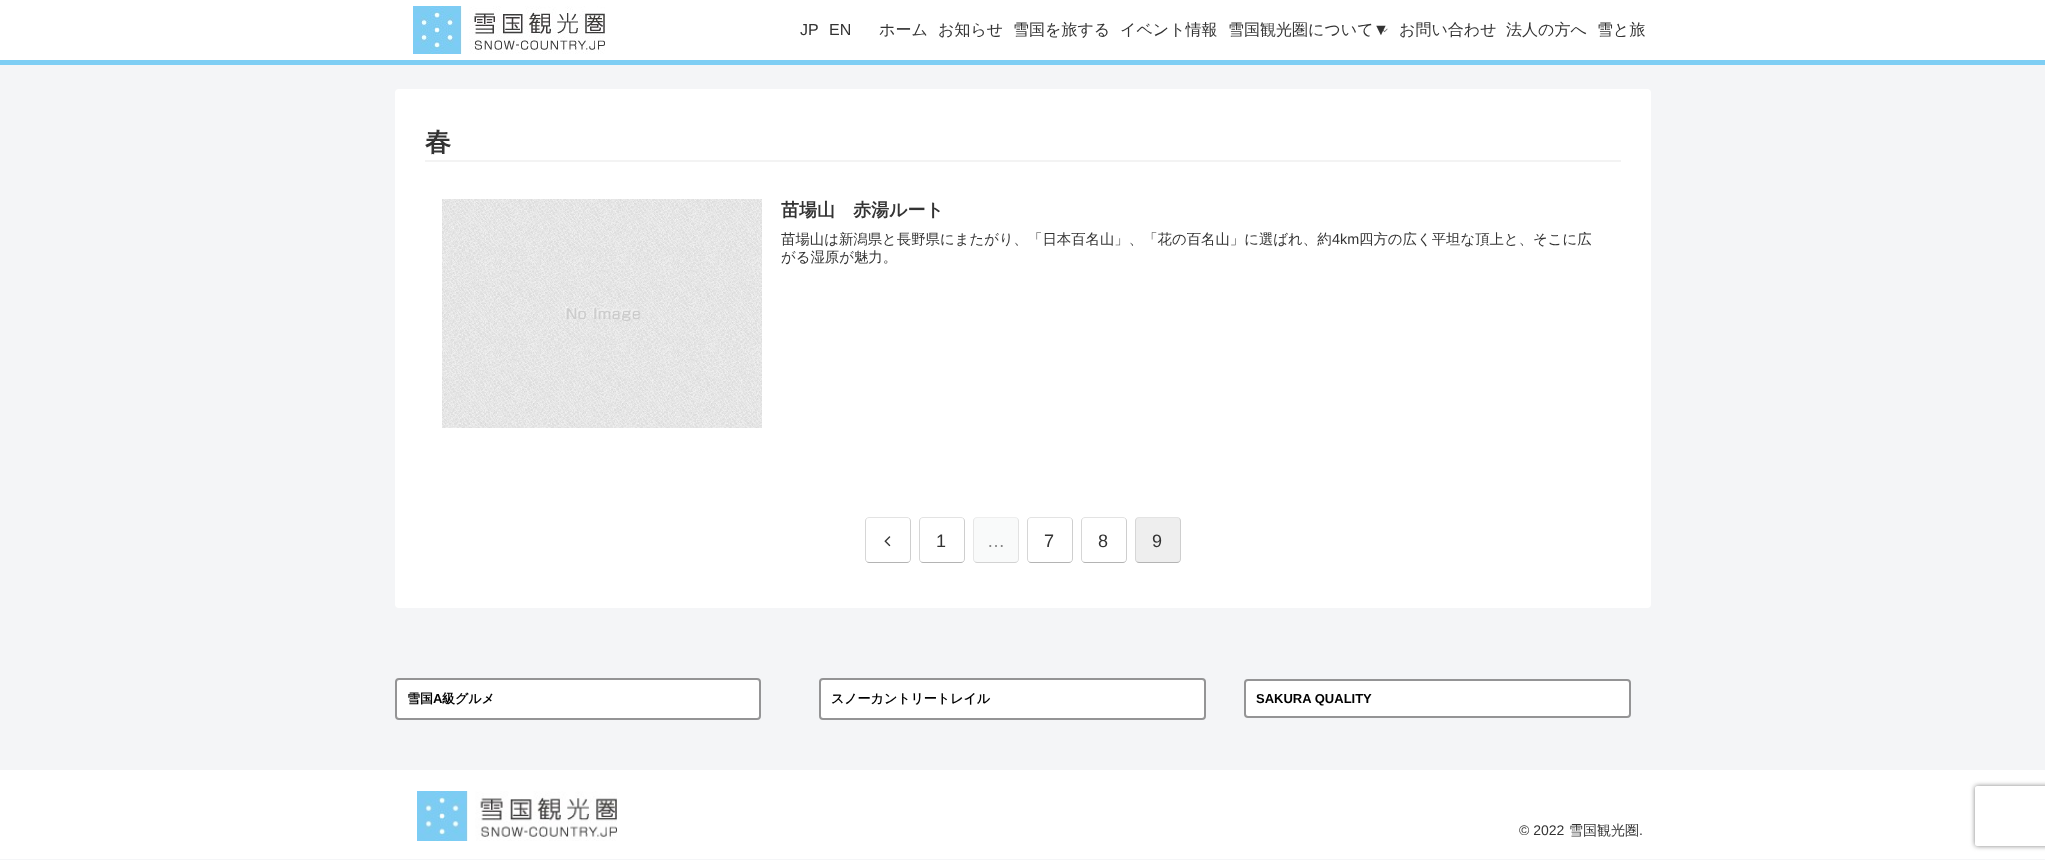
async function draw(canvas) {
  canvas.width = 2045
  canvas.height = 860
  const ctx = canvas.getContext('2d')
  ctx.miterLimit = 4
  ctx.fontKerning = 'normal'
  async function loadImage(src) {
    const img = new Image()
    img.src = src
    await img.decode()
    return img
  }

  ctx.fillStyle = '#f4f5f7'
  ctx.fillRect(0, 0, 2045, 860)
  ctx.fillStyle = '#fff'
  ctx.fillRect(0, 0, 2045, 60)
  ctx.fillStyle = '#7ecef4'
  ctx.fillRect(0, 60, 2045, 5)
  ctx.drawImage(await loadImage('image0.png'), 413, 6, 192, 48)
  ctx.font = '16px Liberation Sans'
  ctx.fillStyle = '#333'
  ctx.fillText('JP', 800, 35)
  ctx.fillText('EN', 829, 35)
  ctx.font = '500 16px WenQuanYi Zen Hei'
  ctx.fillText('ホーム', 879, 35)
  ctx.fillText('お知らせ', 938, 35)
  ctx.fillText('雪国を旅する', 1013, 35)
  ctx.fillText('イベント情報', 1120, 35)
  ctx.fillText('雪国観光圏について', 1228, 35)
  ctx.font = '16px Liberation Sans'
  ctx.fillText('▼', 1373, 35)
  ctx.drawImage(await loadImage('image1.png'), 1383, 28, 5, 5)
  ctx.font = '500 16px WenQuanYi Zen Hei'
  ctx.fillText('お問い合わせ', 1399, 35)
  ctx.fillText('法人の方へ', 1506, 35)
  ctx.fillText('雪と旅', 1597, 35)
  ctx.fillStyle = '#fff'
  ctx.beginPath()
  ctx.roundRect(395, 89, 1256, 519, 4)
  ctx.fill()
  ctx.fillStyle = '#f3f3f3'
  ctx.fillRect(425, 160, 1196, 2)
  ctx.font = 'bold 26px WenQuanYi Zen Hei'
  ctx.fillStyle = '#333'
  ctx.fillText('春', 425, 151)
  ctx.drawImage(await loadImage('image2.png'), 442, 199, 320, 229)
  ctx.font = 'bold 18px WenQuanYi Zen Hei'
  ctx.fillText('苗場山　赤湯ルート', 781, 216)
  ctx.font = '500 14.4px WenQuanYi Zen Hei'
  ctx.fillText('苗場山は新潟県と長野県にまたがり、「日本百名山」、「花の百名山」に選ばれ、約', 781, 244)
  ctx.font = '14.4px Liberation Sans'
  ctx.fillText('4km', 1332, 244)
  ctx.font = '500 14.4px WenQuanYi Zen Hei'
  ctx.fillText('四方の広く平坦な頂上と、そこに広', 1359, 244)
  ctx.fillText('がる湿原が魅力。', 781, 262)
  ctx.beginPath()
  ctx.moveTo(866.5, 518.5)
  ctx.bezierCurveTo(867, 518, 868, 517.5, 869, 517.5)
  ctx.lineTo(907, 517.5)
  ctx.bezierCurveTo(908, 517.5, 909, 518, 909.5, 518.5)
  ctx.strokeStyle = '#e3e3e3'
  ctx.stroke()
  ctx.beginPath()
  ctx.moveTo(909.5, 518.5)
  ctx.bezierCurveTo(910, 519, 910.5, 520, 910.5, 521)
  ctx.lineTo(910.5, 559)
  ctx.bezierCurveTo(910.5, 560, 910, 561, 909.5, 561.5)
  ctx.strokeStyle = '#cecece'
  ctx.stroke()
  ctx.beginPath()
  ctx.moveTo(909.5, 561.5)
  ctx.bezierCurveTo(909, 562, 908, 562.5, 907, 562.5)
  ctx.lineTo(869, 562.5)
  ctx.bezierCurveTo(868, 562.5, 867, 562, 866.5, 561.5)
  ctx.strokeStyle = '#b4b4b4'
  ctx.stroke()
  ctx.beginPath()
  ctx.moveTo(866.5, 561.5)
  ctx.bezierCurveTo(866, 561, 865.5, 560, 865.5, 559)
  ctx.lineTo(865.5, 521)
  ctx.bezierCurveTo(865.5, 520, 866, 519, 866.5, 518.5)
  ctx.strokeStyle = '#d6d6d6'
  ctx.stroke()
  ctx.drawImage(await loadImage('image3.png'), 884, 536, 7, 11)
  ctx.beginPath()
  ctx.moveTo(920.5, 518.5)
  ctx.bezierCurveTo(921, 518, 922, 517.5, 923, 517.5)
  ctx.lineTo(961, 517.5)
  ctx.bezierCurveTo(962, 517.5, 963, 518, 963.5, 518.5)
  ctx.strokeStyle = '#e3e3e3'
  ctx.stroke()
  ctx.beginPath()
  ctx.moveTo(963.5, 518.5)
  ctx.bezierCurveTo(964, 519, 964.5, 520, 964.5, 521)
  ctx.lineTo(964.5, 559)
  ctx.bezierCurveTo(964.5, 560, 964, 561, 963.5, 561.5)
  ctx.strokeStyle = '#cecece'
  ctx.stroke()
  ctx.beginPath()
  ctx.moveTo(963.5, 561.5)
  ctx.bezierCurveTo(963, 562, 962, 562.5, 961, 562.5)
  ctx.lineTo(923, 562.5)
  ctx.bezierCurveTo(922, 562.5, 921, 562, 920.5, 561.5)
  ctx.strokeStyle = '#b4b4b4'
  ctx.stroke()
  ctx.beginPath()
  ctx.moveTo(920.5, 561.5)
  ctx.bezierCurveTo(920, 561, 919.5, 560, 919.5, 559)
  ctx.lineTo(919.5, 521)
  ctx.bezierCurveTo(919.5, 520, 920, 519, 920.5, 518.5)
  ctx.strokeStyle = '#d6d6d6'
  ctx.stroke()
  ctx.font = '18px Liberation Sans'
  ctx.fillText('1', 936, 547)
  ctx.fillStyle = '#f9fafa'
  ctx.beginPath()
  ctx.roundRect(973, 517, 46, 46, 4)
  ctx.fill()
  ctx.beginPath()
  ctx.moveTo(974.5, 518.5)
  ctx.bezierCurveTo(975, 518, 976, 517.5, 977, 517.5)
  ctx.lineTo(1015, 517.5)
  ctx.bezierCurveTo(1016, 517.5, 1017, 518, 1017.5, 518.5)
  ctx.strokeStyle = '#eee'
  ctx.stroke()
  ctx.beginPath()
  ctx.moveTo(1017.5, 518.5)
  ctx.bezierCurveTo(1018, 519, 1018.5, 520, 1018.5, 521)
  ctx.lineTo(1018.5, 559)
  ctx.bezierCurveTo(1018.5, 560, 1018, 561, 1017.5, 561.5)
  ctx.strokeStyle = '#e2e2e2'
  ctx.stroke()
  ctx.beginPath()
  ctx.moveTo(1017.5, 561.5)
  ctx.bezierCurveTo(1017, 562, 1016, 562.5, 1015, 562.5)
  ctx.lineTo(977, 562.5)
  ctx.bezierCurveTo(976, 562.5, 975, 562, 974.5, 561.5)
  ctx.strokeStyle = '#d2d2d2'
  ctx.stroke()
  ctx.beginPath()
  ctx.moveTo(974.5, 561.5)
  ctx.bezierCurveTo(974, 561, 973.5, 560, 973.5, 559)
  ctx.lineTo(973.5, 521)
  ctx.bezierCurveTo(973.5, 520, 974, 519, 974.5, 518.5)
  ctx.strokeStyle = '#e6e6e6'
  ctx.stroke()
  ctx.fillStyle = '#858585'
  ctx.fillText('…', 987, 547)
  ctx.beginPath()
  ctx.moveTo(1028.5, 518.5)
  ctx.bezierCurveTo(1029, 518, 1030, 517.5, 1031, 517.5)
  ctx.lineTo(1069, 517.5)
  ctx.bezierCurveTo(1070, 517.5, 1071, 518, 1071.5, 518.5)
  ctx.strokeStyle = '#e3e3e3'
  ctx.stroke()
  ctx.beginPath()
  ctx.moveTo(1071.5, 518.5)
  ctx.bezierCurveTo(1072, 519, 1072.5, 520, 1072.5, 521)
  ctx.lineTo(1072.5, 559)
  ctx.bezierCurveTo(1072.5, 560, 1072, 561, 1071.5, 561.5)
  ctx.strokeStyle = '#cecece'
  ctx.stroke()
  ctx.beginPath()
  ctx.moveTo(1071.5, 561.5)
  ctx.bezierCurveTo(1071, 562, 1070, 562.5, 1069, 562.5)
  ctx.lineTo(1031, 562.5)
  ctx.bezierCurveTo(1030, 562.5, 1029, 562, 1028.5, 561.5)
  ctx.strokeStyle = '#b4b4b4'
  ctx.stroke()
  ctx.beginPath()
  ctx.moveTo(1028.5, 561.5)
  ctx.bezierCurveTo(1028, 561, 1027.5, 560, 1027.5, 559)
  ctx.lineTo(1027.5, 521)
  ctx.bezierCurveTo(1027.5, 520, 1028, 519, 1028.5, 518.5)
  ctx.strokeStyle = '#d6d6d6'
  ctx.stroke()
  ctx.fillStyle = '#333'
  ctx.fillText('7', 1044, 547)
  ctx.beginPath()
  ctx.moveTo(1082.5, 518.5)
  ctx.bezierCurveTo(1083, 518, 1084, 517.5, 1085, 517.5)
  ctx.lineTo(1123, 517.5)
  ctx.bezierCurveTo(1124, 517.5, 1125, 518, 1125.5, 518.5)
  ctx.strokeStyle = '#e3e3e3'
  ctx.stroke()
  ctx.beginPath()
  ctx.moveTo(1125.5, 518.5)
  ctx.bezierCurveTo(1126, 519, 1126.5, 520, 1126.5, 521)
  ctx.lineTo(1126.5, 559)
  ctx.bezierCurveTo(1126.5, 560, 1126, 561, 1125.5, 561.5)
  ctx.strokeStyle = '#cecece'
  ctx.stroke()
  ctx.beginPath()
  ctx.moveTo(1125.5, 561.5)
  ctx.bezierCurveTo(1125, 562, 1124, 562.5, 1123, 562.5)
  ctx.lineTo(1085, 562.5)
  ctx.bezierCurveTo(1084, 562.5, 1083, 562, 1082.5, 561.5)
  ctx.strokeStyle = '#b4b4b4'
  ctx.stroke()
  ctx.beginPath()
  ctx.moveTo(1082.5, 561.5)
  ctx.bezierCurveTo(1082, 561, 1081.5, 560, 1081.5, 559)
  ctx.lineTo(1081.5, 521)
  ctx.bezierCurveTo(1081.5, 520, 1082, 519, 1082.5, 518.5)
  ctx.strokeStyle = '#d6d6d6'
  ctx.stroke()
  ctx.fillText('8', 1098, 547)
  ctx.fillStyle = '#eee'
  ctx.beginPath()
  ctx.roundRect(1135, 517, 46, 46, 4)
  ctx.fill()
  ctx.beginPath()
  ctx.moveTo(1136.5, 518.5)
  ctx.bezierCurveTo(1137, 518, 1138, 517.5, 1139, 517.5)
  ctx.lineTo(1177, 517.5)
  ctx.bezierCurveTo(1178, 517.5, 1179, 518, 1179.5, 518.5)
  ctx.strokeStyle = '#e3e3e3'
  ctx.stroke()
  ctx.beginPath()
  ctx.moveTo(1179.5, 518.5)
  ctx.bezierCurveTo(1180, 519, 1180.5, 520, 1180.5, 521)
  ctx.lineTo(1180.5, 559)
  ctx.bezierCurveTo(1180.5, 560, 1180, 561, 1179.5, 561.5)
  ctx.strokeStyle = '#cecece'
  ctx.stroke()
  ctx.beginPath()
  ctx.moveTo(1179.5, 561.5)
  ctx.bezierCurveTo(1179, 562, 1178, 562.5, 1177, 562.5)
  ctx.lineTo(1139, 562.5)
  ctx.bezierCurveTo(1138, 562.5, 1137, 562, 1136.5, 561.5)
  ctx.strokeStyle = '#b4b4b4'
  ctx.stroke()
  ctx.beginPath()
  ctx.moveTo(1136.5, 561.5)
  ctx.bezierCurveTo(1136, 561, 1135.5, 560, 1135.5, 559)
  ctx.lineTo(1135.5, 521)
  ctx.bezierCurveTo(1135.5, 520, 1136, 519, 1136.5, 518.5)
  ctx.strokeStyle = '#d6d6d6'
  ctx.stroke()
  ctx.fillStyle = '#333'
  ctx.fillText('9', 1152, 547)
  ctx.fillStyle = '#fff'
  ctx.beginPath()
  ctx.roundRect(396, 679, 364, 40, 3)
  ctx.fill()
  ctx.strokeStyle = '#949495'
  ctx.lineWidth = 2
  ctx.stroke()
  ctx.font = 'bold 13px WenQuanYi Zen Hei'
  ctx.fillStyle = '#000'
  ctx.fillText('雪国', 407, 703)
  ctx.font = 'bold 13px Liberation Sans'
  ctx.fillText('A', 433, 703)
  ctx.font = 'bold 13px WenQuanYi Zen Hei'
  ctx.fillText('級グルメ', 442, 703)
  ctx.fillStyle = '#fff'
  ctx.beginPath()
  ctx.roundRect(820, 679, 385, 40, 3)
  ctx.fill()
  ctx.stroke()
  ctx.fillStyle = '#000'
  ctx.fillText('スノーカントリートレイル', 831, 703)
  ctx.fillStyle = '#fff'
  ctx.beginPath()
  ctx.roundRect(1245, 680, 385, 37, 3)
  ctx.fill()
  ctx.stroke()
  ctx.font = 'bold 13px Liberation Sans'
  ctx.fillStyle = '#000'
  ctx.fillText('SAKURA QUALITY', 1256, 703)
  ctx.fillStyle = '#fff'
  ctx.fillRect(0, 770, 2045, 89)
  ctx.drawImage(await loadImage('image4.png'), 417, 791, 200, 50)
  ctx.font = '14px Liberation Sans'
  ctx.fillStyle = '#333'
  ctx.fillText('© 2022', 1519, 835)
  ctx.font = '500 14px WenQuanYi Zen Hei'
  ctx.fillText('雪国観光圏', 1569, 835)
  ctx.font = '14px Liberation Sans'
  ctx.fillText('.', 1639, 835)
  ctx.save()
  ctx.beginPath()
  ctx.moveTo(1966, 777)
  ctx.lineTo(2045, 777)
  ctx.lineTo(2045, 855)
  ctx.lineTo(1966, 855)
  ctx.closePath()
  ctx.moveTo(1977, 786)
  ctx.lineTo(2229, 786)
  ctx.bezierCurveTo(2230, 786, 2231, 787, 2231, 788)
  ctx.lineTo(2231, 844)
  ctx.bezierCurveTo(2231, 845, 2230, 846, 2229, 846)
  ctx.lineTo(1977, 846)
  ctx.bezierCurveTo(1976, 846, 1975, 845, 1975, 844)
  ctx.lineTo(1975, 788)
  ctx.bezierCurveTo(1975, 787, 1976, 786, 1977, 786)
  ctx.closePath()
  ctx.clip('evenodd')
  ctx.fillStyle = '#808080'
  ctx.filter = 'blur(2.5px)'
  ctx.beginPath()
  ctx.roundRect(1975, 786, 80, 60, 2)
  ctx.fill()
  ctx.filter = 'none'
  ctx.restore()
}

draw(document.querySelector('canvas'))
